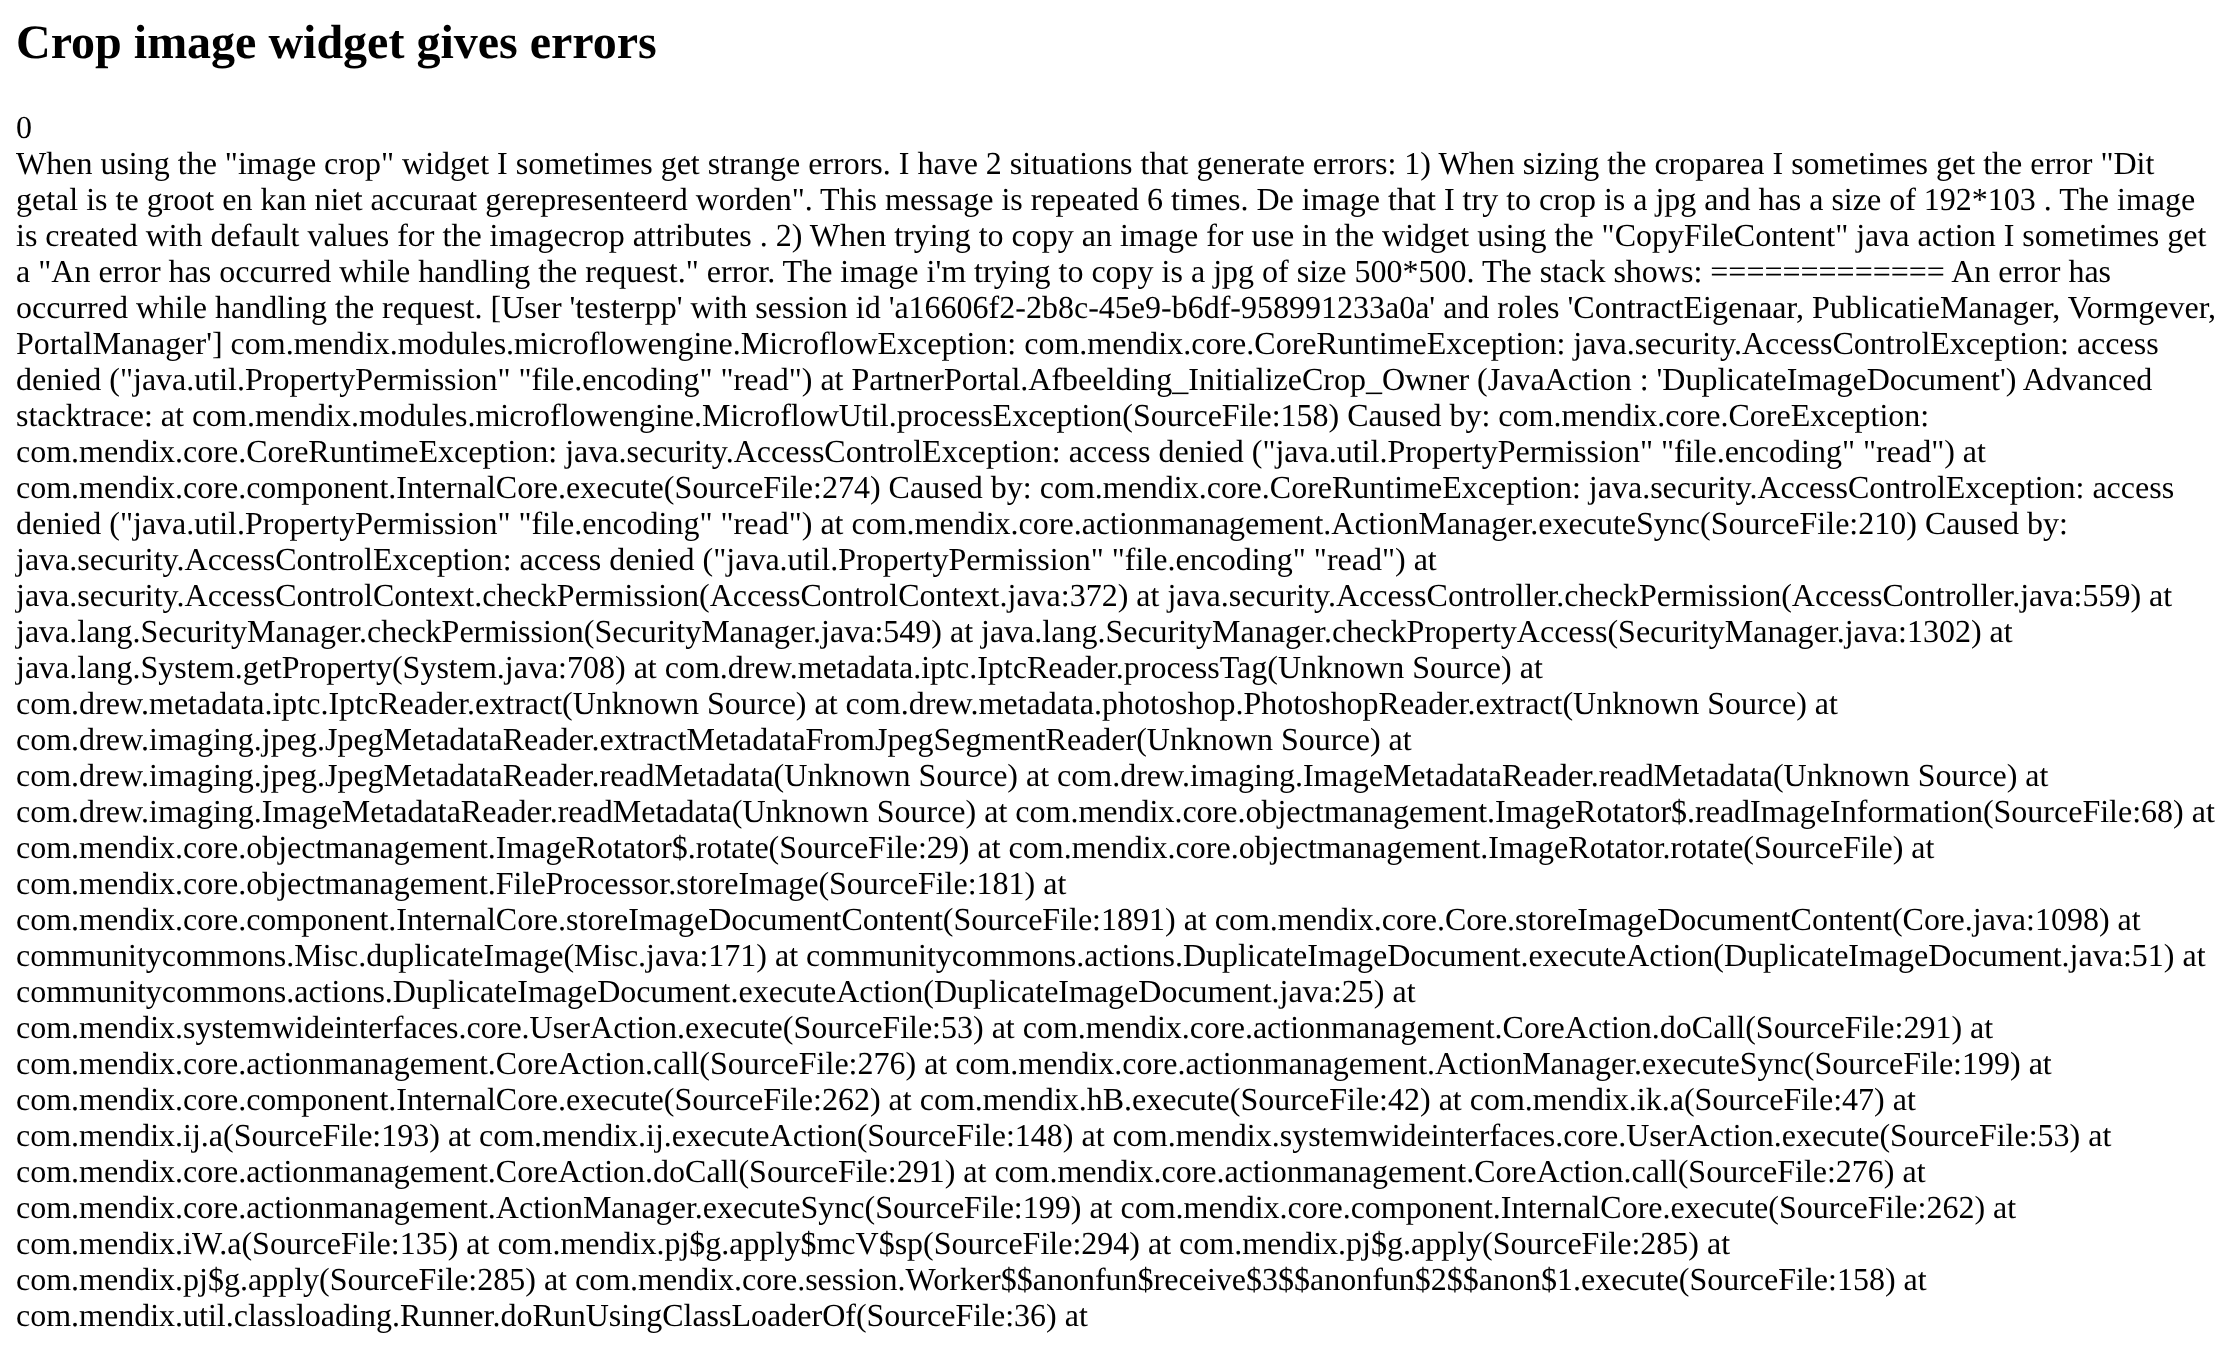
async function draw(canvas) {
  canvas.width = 2239
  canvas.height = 1347
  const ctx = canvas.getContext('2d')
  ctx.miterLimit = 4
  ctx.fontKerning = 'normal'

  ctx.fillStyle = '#fff'
  ctx.fillRect(0, 0, 2239, 1347)
  ctx.font = 'bold 48px Liberation Serif'
  ctx.fillStyle = '#000'
  ctx.fillText('Crop image widget gives errors', 16, 58)
  ctx.font = '32px Liberation Serif'
  ctx.fillText('0', 16, 138)
  ctx.fillText('When using the "image crop" widget I sometimes get strange errors. I have 2 situations that generate errors: 1) When sizing the croparea I sometimes get the error "Dit', 16, 174)
  ctx.fillText('getal is te groot en kan niet accuraat gerepresenteerd worden". This message is repeated 6 times. De image that I try to crop is a jpg and has a size of 192*103 . The image', 16, 210)
  ctx.fillText('is created with default values for the imagecrop attributes . 2) When trying to copy an image for use in the widget using the "CopyFileContent" java action I sometimes get', 16, 246)
  ctx.fillText('a "An error has occurred while handling the request." error. The image i\'m trying to copy is a jpg of size 500*500. The stack shows: ============= An error has', 16, 282)
  ctx.fillText('occurred while handling the request. [User \'testerpp\' with session id \'a16606f2-2b8c-45e9-b6df-958991233a0a\' and roles \'ContractEigenaar, PublicatieManager, Vormgever,', 16, 318)
  ctx.fillText('PortalManager\'] com.mendix.modules.microflowengine.MicroflowException: com.mendix.core.CoreRuntimeException: java.security.AccessControlException: access', 16, 354)
  ctx.fillText('denied ("java.util.PropertyPermission" "file.encoding" "read") at PartnerPortal.Afbeelding_InitializeCrop_Owner (JavaAction : \'DuplicateImageDocument\') Advanced', 16, 390)
  ctx.fillText('stacktrace: at com.mendix.modules.microflowengine.MicroflowUtil.processException(SourceFile:158) Caused by: com.mendix.core.CoreException:', 16, 426)
  ctx.fillText('com.mendix.core.CoreRuntimeException: java.security.AccessControlException: access denied ("java.util.PropertyPermission" "file.encoding" "read") at', 16, 462)
  ctx.fillText('com.mendix.core.component.InternalCore.execute(SourceFile:274) Caused by: com.mendix.core.CoreRuntimeException: java.security.AccessControlException: access', 16, 498)
  ctx.fillText('denied ("java.util.PropertyPermission" "file.encoding" "read") at com.mendix.core.actionmanagement.ActionManager.executeSync(SourceFile:210) Caused by:', 16, 534)
  ctx.fillText('java.security.AccessControlException: access denied ("java.util.PropertyPermission" "file.encoding" "read") at', 16, 570)
  ctx.fillText('java.security.AccessControlContext.checkPermission(AccessControlContext.java:372) at java.security.AccessController.checkPermission(AccessController.java:559) at', 16, 606)
  ctx.fillText('java.lang.SecurityManager.checkPermission(SecurityManager.java:549) at java.lang.SecurityManager.checkPropertyAccess(SecurityManager.java:1302) at', 16, 642)
  ctx.fillText('java.lang.System.getProperty(System.java:708) at com.drew.metadata.iptc.IptcReader.processTag(Unknown Source) at', 16, 678)
  ctx.fillText('com.drew.metadata.iptc.IptcReader.extract(Unknown Source) at com.drew.metadata.photoshop.PhotoshopReader.extract(Unknown Source) at', 16, 714)
  ctx.fillText('com.drew.imaging.jpeg.JpegMetadataReader.extractMetadataFromJpegSegmentReader(Unknown Source) at', 16, 750)
  ctx.fillText('com.drew.imaging.jpeg.JpegMetadataReader.readMetadata(Unknown Source) at com.drew.imaging.ImageMetadataReader.readMetadata(Unknown Source) at', 16, 786)
  ctx.fillText('com.drew.imaging.ImageMetadataReader.readMetadata(Unknown Source) at com.mendix.core.objectmanagement.ImageRotator$.readImageInformation(SourceFile:68) at', 16, 822)
  ctx.fillText('com.mendix.core.objectmanagement.ImageRotator$.rotate(SourceFile:29) at com.mendix.core.objectmanagement.ImageRotator.rotate(SourceFile) at', 16, 858)
  ctx.fillText('com.mendix.core.objectmanagement.FileProcessor.storeImage(SourceFile:181) at', 16, 894)
  ctx.fillText('com.mendix.core.component.InternalCore.storeImageDocumentContent(SourceFile:1891) at com.mendix.core.Core.storeImageDocumentContent(Core.java:1098) at', 16, 930)
  ctx.fillText('communitycommons.Misc.duplicateImage(Misc.java:171) at communitycommons.actions.DuplicateImageDocument.executeAction(DuplicateImageDocument.java:51) at', 16, 966)
  ctx.fillText('communitycommons.actions.DuplicateImageDocument.executeAction(DuplicateImageDocument.java:25) at', 16, 1002)
  ctx.fillText('com.mendix.systemwideinterfaces.core.UserAction.execute(SourceFile:53) at com.mendix.core.actionmanagement.CoreAction.doCall(SourceFile:291) at', 16, 1038)
  ctx.fillText('com.mendix.core.actionmanagement.CoreAction.call(SourceFile:276) at com.mendix.core.actionmanagement.ActionManager.executeSync(SourceFile:199) at', 16, 1074)
  ctx.fillText('com.mendix.core.component.InternalCore.execute(SourceFile:262) at com.mendix.hB.execute(SourceFile:42) at com.mendix.ik.a(SourceFile:47) at', 16, 1110)
  ctx.fillText('com.mendix.ij.a(SourceFile:193) at com.mendix.ij.executeAction(SourceFile:148) at com.mendix.systemwideinterfaces.core.UserAction.execute(SourceFile:53) at', 16, 1146)
  ctx.fillText('com.mendix.core.actionmanagement.CoreAction.doCall(SourceFile:291) at com.mendix.core.actionmanagement.CoreAction.call(SourceFile:276) at', 16, 1182)
  ctx.fillText('com.mendix.core.actionmanagement.ActionManager.executeSync(SourceFile:199) at com.mendix.core.component.InternalCore.execute(SourceFile:262) at', 16, 1218)
  ctx.fillText('com.mendix.iW.a(SourceFile:135) at com.mendix.pj$g.apply$mcV$sp(SourceFile:294) at com.mendix.pj$g.apply(SourceFile:285) at', 16, 1254)
  ctx.fillText('com.mendix.pj$g.apply(SourceFile:285) at com.mendix.core.session.Worker$$anonfun$receive$3$$anonfun$2$$anon$1.execute(SourceFile:158) at', 16, 1290)
  ctx.fillText('com.mendix.util.classloading.Runner.doRunUsingClassLoaderOf(SourceFile:36) at', 16, 1326)
}

draw(document.querySelector('canvas'))
